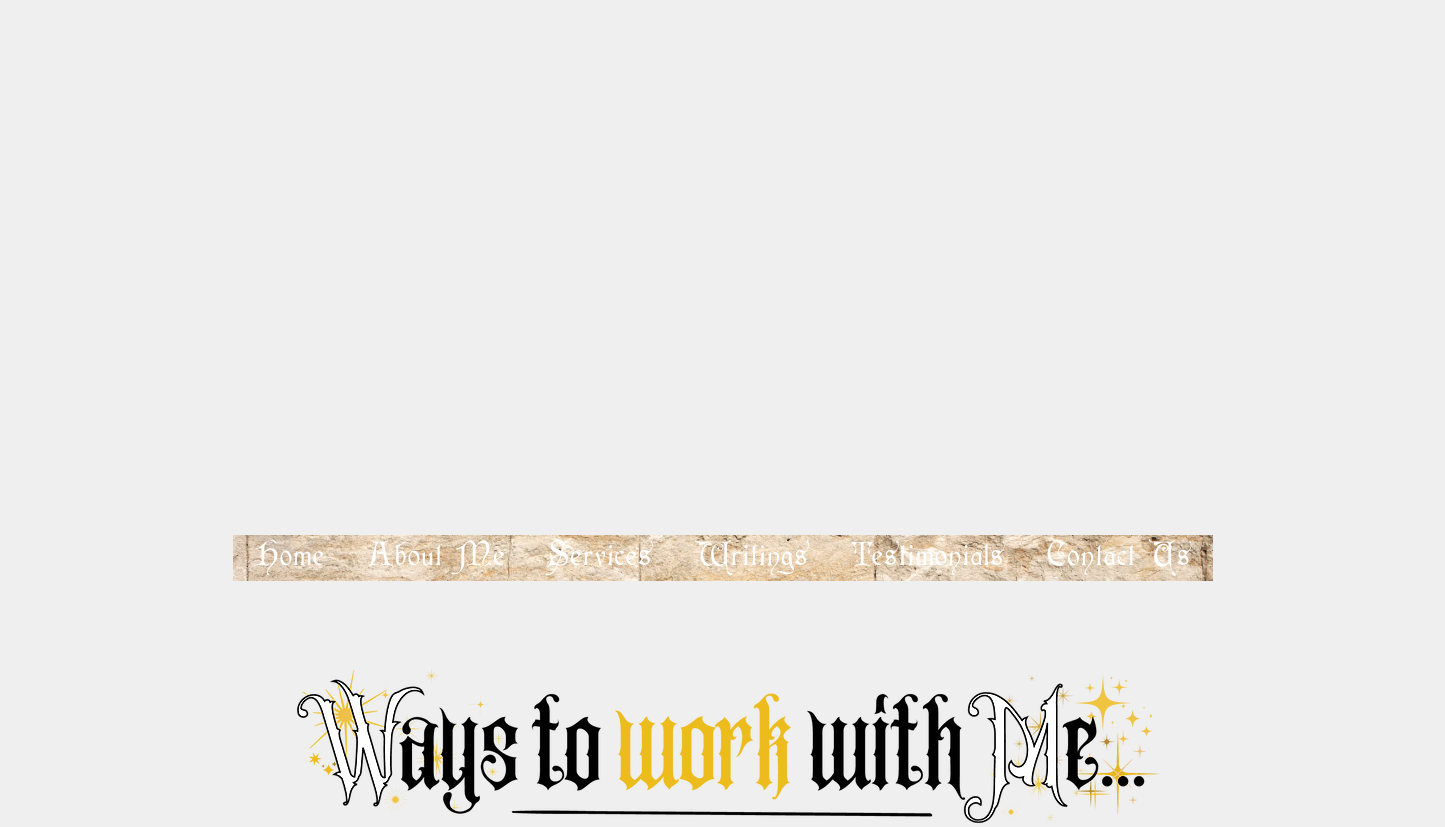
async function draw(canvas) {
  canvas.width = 1445
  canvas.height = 827
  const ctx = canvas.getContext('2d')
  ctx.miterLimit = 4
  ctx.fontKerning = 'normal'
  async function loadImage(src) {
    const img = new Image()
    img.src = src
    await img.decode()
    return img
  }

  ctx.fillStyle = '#efefef'
  ctx.fillRect(0, 0, 1445, 827)
  ctx.drawImage(await loadImage('image0.png'), 233, 535, 980, 46)
  ctx.letterSpacing = '1.6px'
  ctx.font = '32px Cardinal'
  ctx.fillStyle = '#fff'
  ctx.fillText('Home', 253, 565)
  ctx.fillText('About Me', 368, 565)
  ctx.fillText('Services', 547, 565)
  ctx.fillText('Writings', 695, 565)
  ctx.fillText('Testimonials', 851, 565)
  ctx.fillText('Contact Us', 1047, 565)
  ctx.drawImage(await loadImage('image1.png'), 297, 668, 863, 155)
}

draw(document.querySelector('canvas'))
